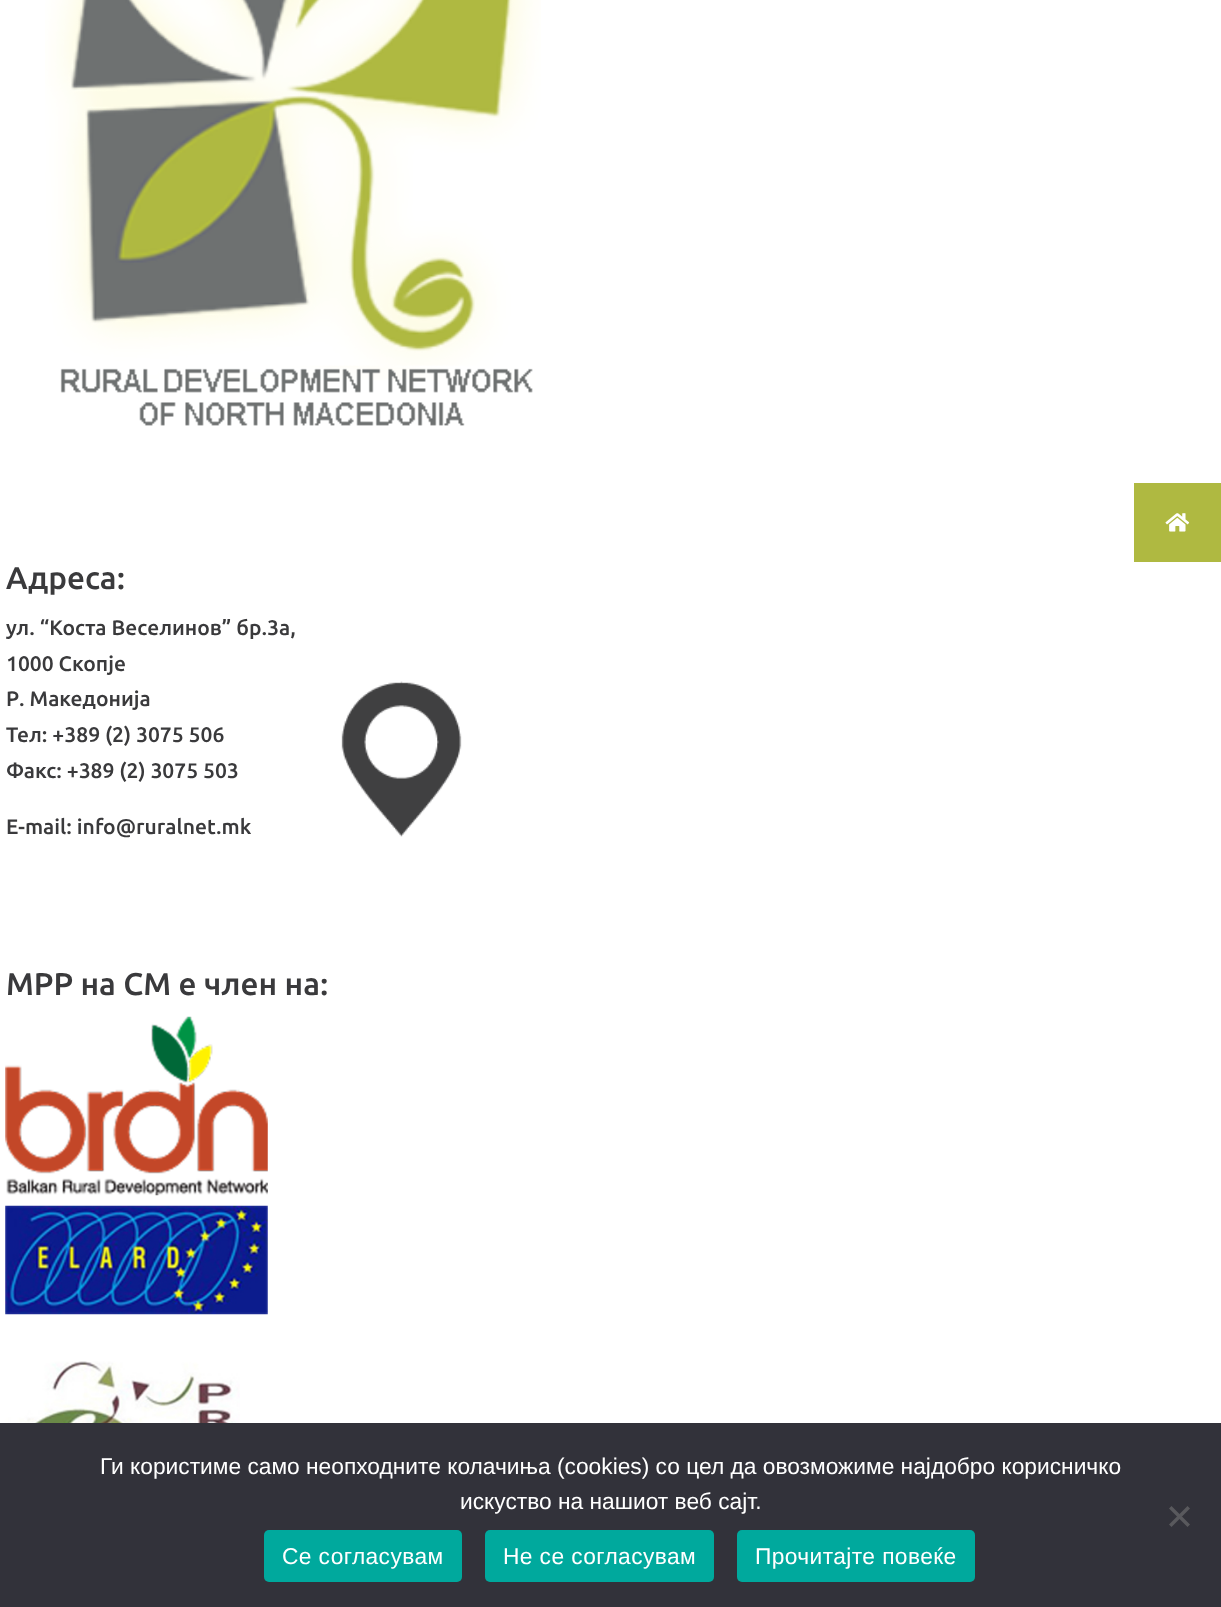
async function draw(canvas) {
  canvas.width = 1221
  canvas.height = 1607
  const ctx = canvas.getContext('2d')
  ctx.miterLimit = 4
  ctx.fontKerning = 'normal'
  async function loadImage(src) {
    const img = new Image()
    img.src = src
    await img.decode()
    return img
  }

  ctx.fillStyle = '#fff'
  ctx.fillRect(0, 0, 1221, 1607)
  ctx.fillStyle = '#afb941'
  ctx.fillRect(1134, 483, 87, 79)
  ctx.drawImage(await loadImage('image0.png'), 1165, 513, 25, 19)
  ctx.drawImage(await loadImage('image1.png'), 45, 0, 496, 426)
  ctx.font = '500 31.5px Ubuntu'
  ctx.fillStyle = '#3a3a3c'
  ctx.fillText('Адреса:', 6, 589)
  ctx.font = '500 21px Ubuntu'
  ctx.fillText('ул. “Коста Веселинов” бр.3a,', 6, 635)
  ctx.fillText('1000 Скопје', 6, 671)
  ctx.fillText('Р. Македонија', 6, 706)
  ctx.fillText('Тел: +389 (2) 3075 506', 6, 742)
  ctx.fillText('Факс: +389 (2) 3075 503', 6, 778)
  ctx.drawImage(await loadImage('image2.png'), 341, 681, 121, 156)
  ctx.fillText('E-mail: info@ruralnet.mk', 6, 834)
  ctx.font = '500 31.5px Ubuntu'
  ctx.fillText('МРР на СМ е член на:', 6, 995)
  ctx.drawImage(await loadImage('image3.png'), 5, 1016, 263, 180)
  ctx.drawImage(await loadImage('image4.png'), 5, 1205, 263, 110)
  ctx.drawImage(await loadImage('image5.png'), 5, 1361, 235, 62)
  ctx.fillStyle = '#32323a'
  ctx.fillRect(0, 1423, 1221, 184)
  ctx.font = '22.75px Liberation Sans'
  ctx.fillStyle = '#fff'
  ctx.fillText('Ги користиме само неопходните колачиња (cookies) со цел да овозможиме најдобро корисничко', 100, 1474)
  ctx.fillText('искуство на нашиот веб сајт.', 460, 1509)
  ctx.fillStyle = '#59595d'
  ctx.beginPath()
  ctx.moveTo(1187.5, 1506)
  ctx.lineTo(1190, 1508.5)
  ctx.lineTo(1171.5, 1527)
  ctx.lineTo(1169, 1524.5)
  ctx.closePath()
  ctx.fill()
  ctx.beginPath()
  ctx.moveTo(1169, 1508.5)
  ctx.lineTo(1171.5, 1506)
  ctx.lineTo(1190, 1524.5)
  ctx.lineTo(1187.5, 1527)
  ctx.closePath()
  ctx.fill()
  ctx.fillStyle = '#00a99d'
  ctx.beginPath()
  ctx.roundRect(264, 1530, 198, 52, 5)
  ctx.fill()
  ctx.letterSpacing = '0.4px'
  ctx.fillStyle = '#fff'
  ctx.fillText('Се согласувам', 282, 1564)
  ctx.fillStyle = '#00a99d'
  ctx.beginPath()
  ctx.roundRect(485, 1530, 229, 52, 5)
  ctx.fill()
  ctx.fillStyle = '#fff'
  ctx.fillText('Не се согласувам', 503, 1564)
  ctx.fillStyle = '#00a99d'
  ctx.beginPath()
  ctx.roundRect(737, 1530, 238, 52, 5)
  ctx.fill()
  ctx.fillStyle = '#fff'
  ctx.fillText('Прочитајте повеќе', 755, 1564)
}

draw(document.querySelector('canvas'))
